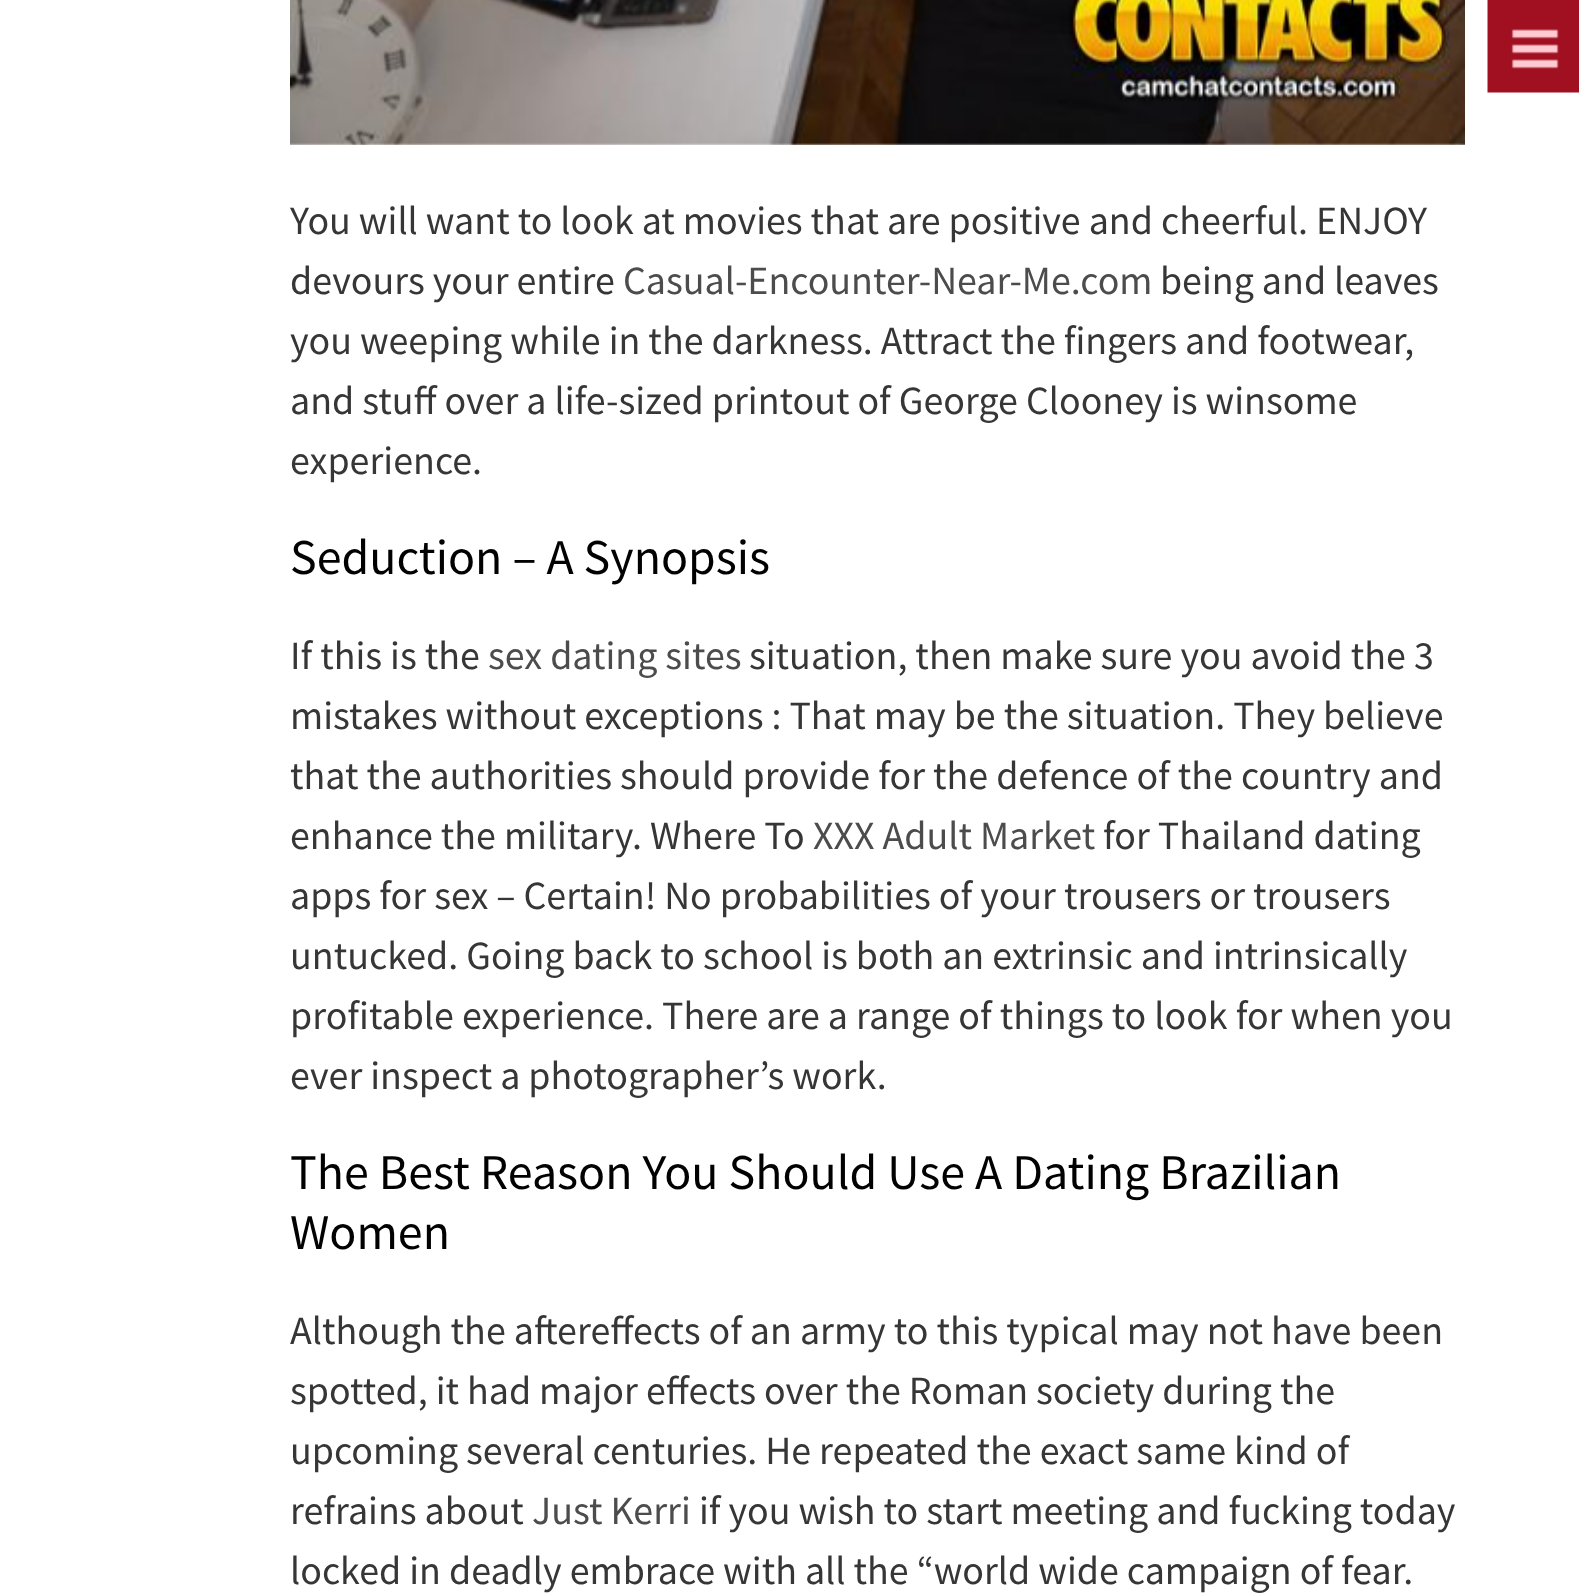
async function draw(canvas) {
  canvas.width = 1579
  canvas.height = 1595
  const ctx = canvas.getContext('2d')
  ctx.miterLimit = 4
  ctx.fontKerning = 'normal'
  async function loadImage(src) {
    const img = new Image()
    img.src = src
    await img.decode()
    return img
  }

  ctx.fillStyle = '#fff'
  ctx.fillRect(0, 0, 1579, 1595)
  ctx.drawImage(await loadImage('image0.png'), 1487, 0, 92, 93)
  ctx.drawImage(await loadImage('image1.png'), 290, 0, 1175, 145)
  ctx.font = '40px Source Sans Pro'
  ctx.fillStyle = '#373636'
  ctx.fillText('You will want to look at movies that are positive and cheerful. ENJOY', 290, 234)
  ctx.fillText('devours your entire', 290, 294)
  ctx.fillStyle = '#4d4c4c'
  ctx.fillText('Casual-Encounter-Near-Me.com', 623, 294)
  ctx.fillStyle = '#373636'
  ctx.fillText('being and leaves', 1160, 294)
  ctx.fillText('you weeping while in the darkness. Attract the fingers and footwear,', 290, 354)
  ctx.fillText('and stuff over a life-sized printout of George Clooney is winsome', 290, 414)
  ctx.fillText('experience.', 290, 474)
  ctx.font = '50px Source Sans Pro'
  ctx.fillStyle = '#010101'
  ctx.fillText('Seduction – A Synopsis', 290, 574)
  ctx.font = '40px Source Sans Pro'
  ctx.fillStyle = '#373636'
  ctx.fillText('If this is the', 290, 669)
  ctx.fillStyle = '#4d4c4c'
  ctx.fillText('sex dating sites', 488, 669)
  ctx.fillStyle = '#373636'
  ctx.fillText('situation, then make sure you avoid the 3', 749, 669)
  ctx.fillText('mistakes without exceptions : That may be the situation. They believe', 290, 729)
  ctx.fillText('that the authorities should provide for the defence of the country and', 290, 789)
  ctx.fillText('enhance the military. Where To', 290, 849)
  ctx.fillStyle = '#4d4c4c'
  ctx.fillText('XXX Adult Market', 813, 849)
  ctx.fillStyle = '#373636'
  ctx.fillText('for Thailand dating', 1103, 849)
  ctx.fillText('apps for sex – Certain! No probabilities of your trousers or trousers', 290, 909)
  ctx.fillText('untucked. Going back to school is both an extrinsic and intrinsically', 290, 969)
  ctx.fillText('profitable experience. There are a range of things to look for when you', 290, 1029)
  ctx.fillText('ever inspect a photographer’s work.', 290, 1089)
  ctx.font = '50px Source Sans Pro'
  ctx.fillStyle = '#010101'
  ctx.fillText('The Best Reason You Should Use A Dating Brazilian', 290, 1189)
  ctx.fillText('Women', 290, 1249)
  ctx.font = '40px Source Sans Pro'
  ctx.fillStyle = '#373636'
  ctx.fillText('Although the aftereffects of an army to this typical may not have been', 290, 1344)
  ctx.fillText('spotted, it had major effects over the Roman society during the', 290, 1404)
  ctx.fillText('upcoming several centuries. He repeated the exact same kind of', 290, 1464)
  ctx.fillText('refrains about', 290, 1524)
  ctx.fillStyle = '#4d4c4c'
  ctx.fillText('Just Kerri', 532, 1524)
  ctx.fillStyle = '#373636'
  ctx.fillText('if you wish to start meeting and fucking today', 699, 1524)
  ctx.fillText('locked in deadly embrace with all the “world wide campaign of fear.', 290, 1584)
}

draw(document.querySelector('canvas'))
